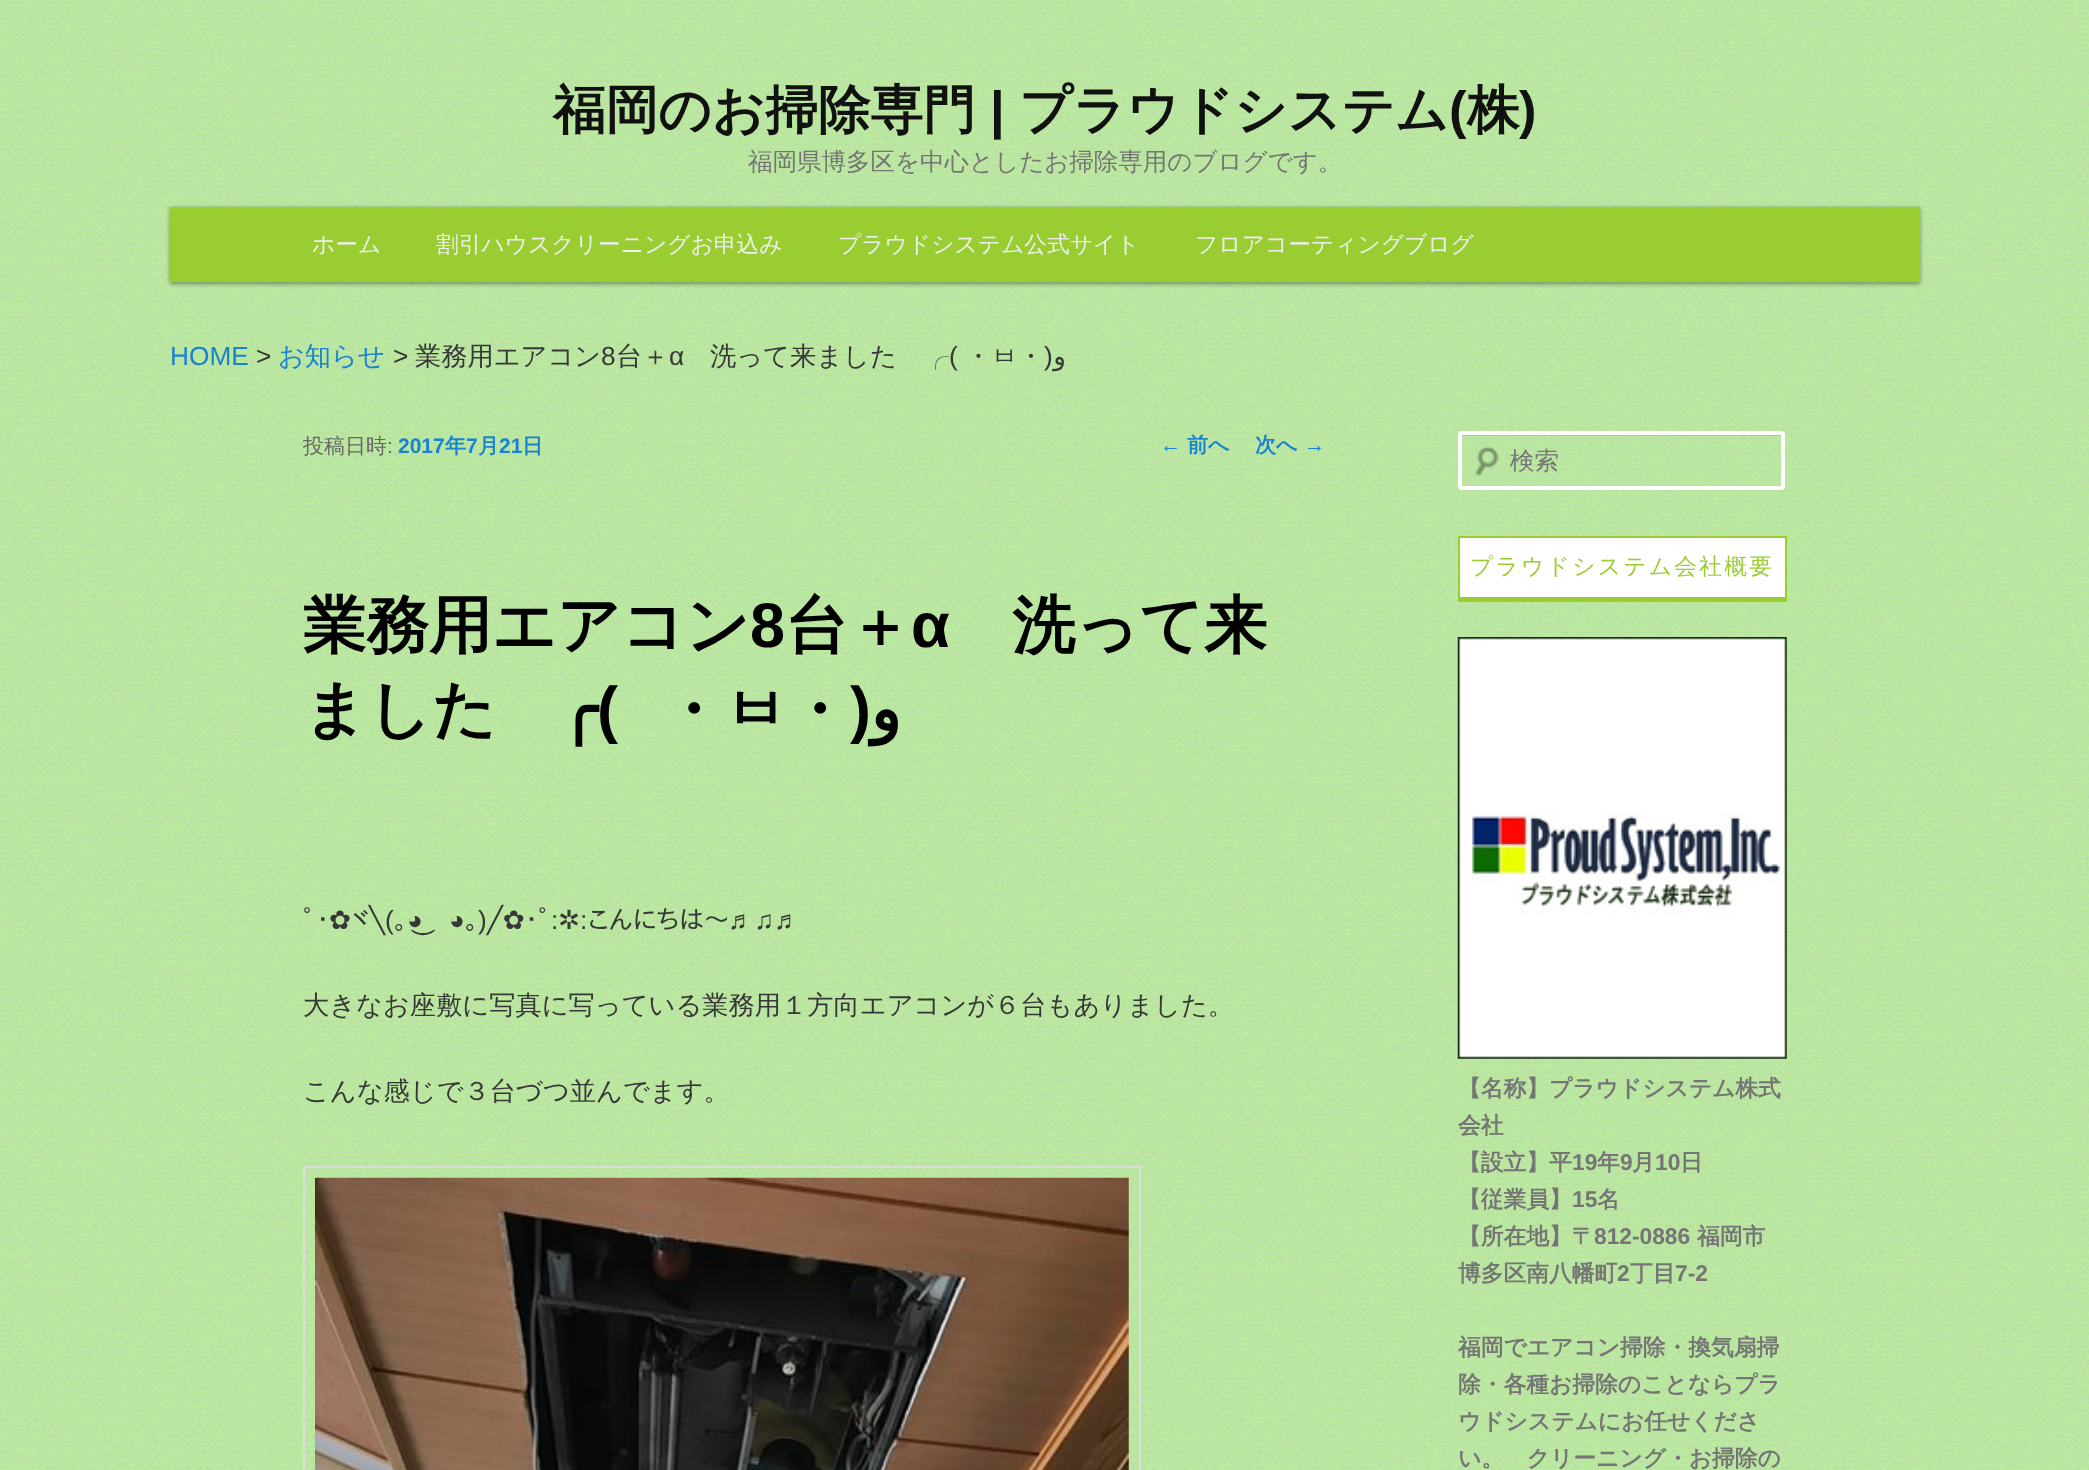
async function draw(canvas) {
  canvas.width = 2089
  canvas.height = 1470
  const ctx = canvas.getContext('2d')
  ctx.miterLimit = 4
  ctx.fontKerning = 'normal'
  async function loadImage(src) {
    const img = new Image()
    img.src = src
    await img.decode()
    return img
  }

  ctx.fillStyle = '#baff91'
  ctx.fillRect(0, 0, 2089, 1470)
  ctx.drawImage(await loadImage('image0.png'), 0, 0, 2089, 1470)
  ctx.font = 'bold 52.5px WenQuanYi Zen Hei'
  ctx.fillStyle = '#111'
  ctx.fillText('福岡のお掃除専門', 553, 128)
  ctx.font = 'bold 52.5px Liberation Sans'
  ctx.fillText('|', 990, 128)
  ctx.font = 'bold 52.5px WenQuanYi Zen Hei'
  ctx.fillText('プラウドシステム', 1019, 128)
  ctx.font = 'bold 52.5px Liberation Sans'
  ctx.fillText('(', 1449, 128)
  ctx.font = 'bold 52.5px WenQuanYi Zen Hei'
  ctx.fillText('株', 1467, 128)
  ctx.font = 'bold 52.5px Liberation Sans'
  ctx.fillText(')', 1519, 128)
  ctx.font = '500 24.5px WenQuanYi Zen Hei'
  ctx.fillStyle = '#757575'
  ctx.fillText('福岡県博多区を中心としたお掃除専用のブログです。', 748, 170)
  ctx.fillStyle = '#00000066'
  ctx.filter = 'blur(2px)'
  ctx.beginPath()
  ctx.rect(170, 208, 1750, 76)
  ctx.fill()
  ctx.filter = 'none'
  ctx.fillStyle = '#9acd32'
  ctx.fillRect(170, 207, 1750, 75)
  ctx.font = '500 22.75px WenQuanYi Zen Hei'
  ctx.fillStyle = '#eee'
  ctx.fillText('ホーム', 312, 252)
  ctx.fillText('割引ハウスクリーニングお申込み', 436, 252)
  ctx.fillText('プラウドシステム公式サイト', 838, 252)
  ctx.fillText('フロアコーティングブログ', 1195, 252)
  ctx.font = '26.25px Liberation Sans'
  ctx.fillStyle = '#1982d1'
  ctx.fillText('HOME', 170, 365)
  ctx.fillStyle = '#373737'
  ctx.fillText('>', 256, 365)
  ctx.font = '500 26.25px WenQuanYi Zen Hei'
  ctx.fillStyle = '#1982d1'
  ctx.fillText('お知らせ', 278, 365)
  ctx.font = '26.25px Liberation Sans'
  ctx.fillStyle = '#373737'
  ctx.fillText('>', 393, 365)
  ctx.font = '500 26.25px WenQuanYi Zen Hei'
  ctx.fillText('業務用エアコン', 415, 365)
  ctx.font = '26.25px Liberation Sans'
  ctx.fillText('8', 601, 365)
  ctx.font = '500 26.25px WenQuanYi Zen Hei'
  ctx.fillText('台＋', 616, 365)
  ctx.font = '26.25px Liberation Sans'
  ctx.fillText('α', 669, 365)
  ctx.font = '500 26.25px WenQuanYi Zen Hei'
  ctx.fillText('洗って来ました　╭', 710, 365)
  ctx.font = '26.25px Liberation Sans'
  ctx.fillText('(', 949, 365)
  ctx.font = '500 26.25px WenQuanYi Zen Hei'
  ctx.fillText('・ㅂ・', 965, 365)
  ctx.font = '26.25px Liberation Sans'
  ctx.fillText(')', 1044, 365)
  ctx.direction = 'rtl'
  ctx.font = '26.25px DejaVu Sans'
  ctx.fillText('و', 1066, 365)
  ctx.direction = 'ltr'
  ctx.font = '21px Liberation Sans'
  ctx.fillStyle = '#1982d1'
  ctx.fillText('←', 1160, 452)
  ctx.font = 'bold 21px WenQuanYi Zen Hei'
  ctx.fillText('前へ', 1187, 452)
  ctx.fillText('次へ', 1255, 452)
  ctx.font = '21px Liberation Sans'
  ctx.fillText('→', 1304, 452)
  ctx.font = '500 21px WenQuanYi Zen Hei'
  ctx.fillStyle = '#666'
  ctx.fillText('投稿日時', 303, 453)
  ctx.font = '21px Liberation Sans'
  ctx.fillText(':', 387, 453)
  ctx.font = 'bold 21px Liberation Sans'
  ctx.fillStyle = '#1982d1'
  ctx.fillText('2017', 398, 453)
  ctx.font = 'bold 21px WenQuanYi Zen Hei'
  ctx.fillText('年', 445, 453)
  ctx.font = 'bold 21px Liberation Sans'
  ctx.fillText('7', 466, 453)
  ctx.font = 'bold 21px WenQuanYi Zen Hei'
  ctx.fillText('月', 478, 453)
  ctx.font = 'bold 21px Liberation Sans'
  ctx.fillText('21', 499, 453)
  ctx.font = 'bold 21px WenQuanYi Zen Hei'
  ctx.fillText('日', 522, 453)
  ctx.font = 'bold 63px WenQuanYi Zen Hei'
  ctx.fillStyle = '#000'
  ctx.fillText('業務用エアコン', 303, 647)
  ctx.font = 'bold 63px Liberation Sans'
  ctx.fillText('8', 750, 647)
  ctx.font = 'bold 63px WenQuanYi Zen Hei'
  ctx.fillText('台＋', 785, 647)
  ctx.font = 'bold 63px Liberation Sans'
  ctx.fillText('α', 911, 647)
  ctx.font = 'bold 63px WenQuanYi Zen Hei'
  ctx.fillText('洗って来', 1012, 647)
  ctx.fillText('ました', 303, 731)
  ctx.font = 'bold 63px DejaVu Sans'
  ctx.fillText('╭', 559, 731)
  ctx.font = 'bold 63px Liberation Sans'
  ctx.fillText('(', 597, 731)
  ctx.font = 'bold 63px WenQuanYi Zen Hei'
  ctx.fillText('・ㅂ・', 661, 731)
  ctx.font = 'bold 63px Liberation Sans'
  ctx.fillText(')', 850, 731)
  ctx.direction = 'rtl'
  ctx.font = 'bold 63px DejaVu Sans'
  ctx.fillText('و', 901, 731)
  ctx.direction = 'ltr'
  ctx.font = '26.25px IPAPGothic'
  ctx.fillStyle = '#373737'
  ctx.fillText('ﾟ･', 303, 929)
  ctx.font = '26.25px DejaVu Sans'
  ctx.fillText('✿', 329, 929)
  ctx.font = '26.25px IPAPGothic'
  ctx.fillText('ヾ', 351, 929)
  ctx.font = '26.25px DejaVu Sans'
  ctx.fillText('╲', 369, 929)
  ctx.font = '26.25px Liberation Sans'
  ctx.fillText('(', 385, 929)
  ctx.font = '26.25px IPAPGothic'
  ctx.fillText('｡', 394, 929)
  ctx.font = '26.25px Liberation Sans'
  ctx.fillText('◕', 407, 929)
  ctx.fillText('◕', 449, 929)
  ctx.font = '26.25px IPAPGothic'
  ctx.fillText('｡', 465, 929)
  ctx.font = '26.25px Liberation Sans'
  ctx.fillText(')', 478, 929)
  ctx.font = '26.25px DejaVu Sans'
  ctx.fillText('╱✿', 487, 929)
  ctx.font = '26.25px IPAPGothic'
  ctx.fillText('･ﾟ', 525, 929)
  ctx.font = '26.25px Liberation Sans'
  ctx.fillText(':', 551, 929)
  ctx.font = '26.25px DejaVu Sans'
  ctx.fillText('✲', 558, 929)
  ctx.font = '26.25px Liberation Sans'
  ctx.fillText(':', 580, 929)
  ctx.font = '26.25px IPAPGothic'
  ctx.fillText('こんにちは～', 588, 929)
  ctx.font = '26.25px Liberation Sans'
  ctx.fillText('♬♫♬', 728, 929)
  ctx.font = '26.25px IPAPGothic'
  ctx.fillText('‿', 423, 929)
  ctx.font = '500 26.25px WenQuanYi Zen Hei'
  ctx.fillText('大きなお座敷に写真に写っている業務用１方向エアコンが６台もありました。', 303, 1014)
  ctx.fillText('こんな感じで３台づつ並んでます。', 303, 1100)
  ctx.strokeStyle = '#ddd'
  ctx.lineWidth = 2
  ctx.strokeRect(304, 1167, 836, 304)
  ctx.drawImage(await loadImage('image1.png'), 315, 1177, 814, 293)
  ctx.drawImage(await loadImage('image2.png'), 1475, 446, 24, 31)
  ctx.fillStyle = '#0000001a'
  ctx.fillRect(1461, 435, 321, 1)
  ctx.beginPath()
  ctx.roundRect(1460, 433, 323, 55, 2)
  ctx.strokeStyle = '#fff'
  ctx.lineWidth = 4
  ctx.stroke()
  ctx.font = '500 24.5px WenQuanYi Zen Hei'
  ctx.fillStyle = '#757575'
  ctx.fillText('検索', 1510, 469)
  ctx.fillStyle = '#fff'
  ctx.fillRect(1460, 538, 325, 59)
  ctx.fillStyle = '#9acd32'
  ctx.fillRect(1458, 536, 329, 2)
  ctx.fillRect(1785, 536, 2, 66)
  ctx.fillRect(1458, 597, 329, 5)
  ctx.fillRect(1458, 536, 2, 66)
  ctx.letterSpacing = '2.25px'
  ctx.font = '500 22.75px WenQuanYi Zen Hei'
  ctx.fillText('プラウドシステム会社概要', 1470, 574)
  ctx.drawImage(await loadImage('image3.png'), 1457, 637, 330, 422)
  ctx.letterSpacing = '0px'
  ctx.font = 'bold 22.75px WenQuanYi Zen Hei'
  ctx.fillStyle = '#757575'
  ctx.fillText('【名称】プラウドシステム株式', 1458, 1096)
  ctx.fillText('会社', 1458, 1133)
  ctx.fillText('【設立】平', 1458, 1170)
  ctx.font = 'bold 22.75px Liberation Sans'
  ctx.fillText('19', 1572, 1170)
  ctx.font = 'bold 22.75px WenQuanYi Zen Hei'
  ctx.fillText('年', 1597, 1170)
  ctx.font = 'bold 22.75px Liberation Sans'
  ctx.fillText('9', 1620, 1170)
  ctx.font = 'bold 22.75px WenQuanYi Zen Hei'
  ctx.fillText('月', 1632, 1170)
  ctx.font = 'bold 22.75px Liberation Sans'
  ctx.fillText('10', 1655, 1170)
  ctx.font = 'bold 22.75px WenQuanYi Zen Hei'
  ctx.fillText('日', 1680, 1170)
  ctx.fillText('【従業員】', 1458, 1207)
  ctx.font = 'bold 22.75px Liberation Sans'
  ctx.fillText('15', 1572, 1207)
  ctx.font = 'bold 22.75px WenQuanYi Zen Hei'
  ctx.fillText('名', 1597, 1207)
  ctx.fillText('【所在地】〒', 1458, 1244)
  ctx.font = 'bold 22.75px Liberation Sans'
  ctx.fillText('812-0886', 1594, 1244)
  ctx.font = 'bold 22.75px WenQuanYi Zen Hei'
  ctx.fillText('福岡市', 1697, 1244)
  ctx.fillText('博多区南八幡町', 1458, 1281)
  ctx.font = 'bold 22.75px Liberation Sans'
  ctx.fillText('2', 1617, 1281)
  ctx.font = 'bold 22.75px WenQuanYi Zen Hei'
  ctx.fillText('丁目', 1630, 1281)
  ctx.font = 'bold 22.75px Liberation Sans'
  ctx.fillText('7-2', 1675, 1281)
  ctx.font = 'bold 22.75px WenQuanYi Zen Hei'
  ctx.fillText('福岡でエアコン掃除・換気扇掃', 1458, 1355)
  ctx.fillText('除・各種お掃除のことならプラ', 1458, 1392)
  ctx.fillText('ウドシステムにお任せくださ', 1458, 1429)
  ctx.fillText('い。　クリーニング・お掃除の', 1458, 1466)
}

draw(document.querySelector('canvas'))
